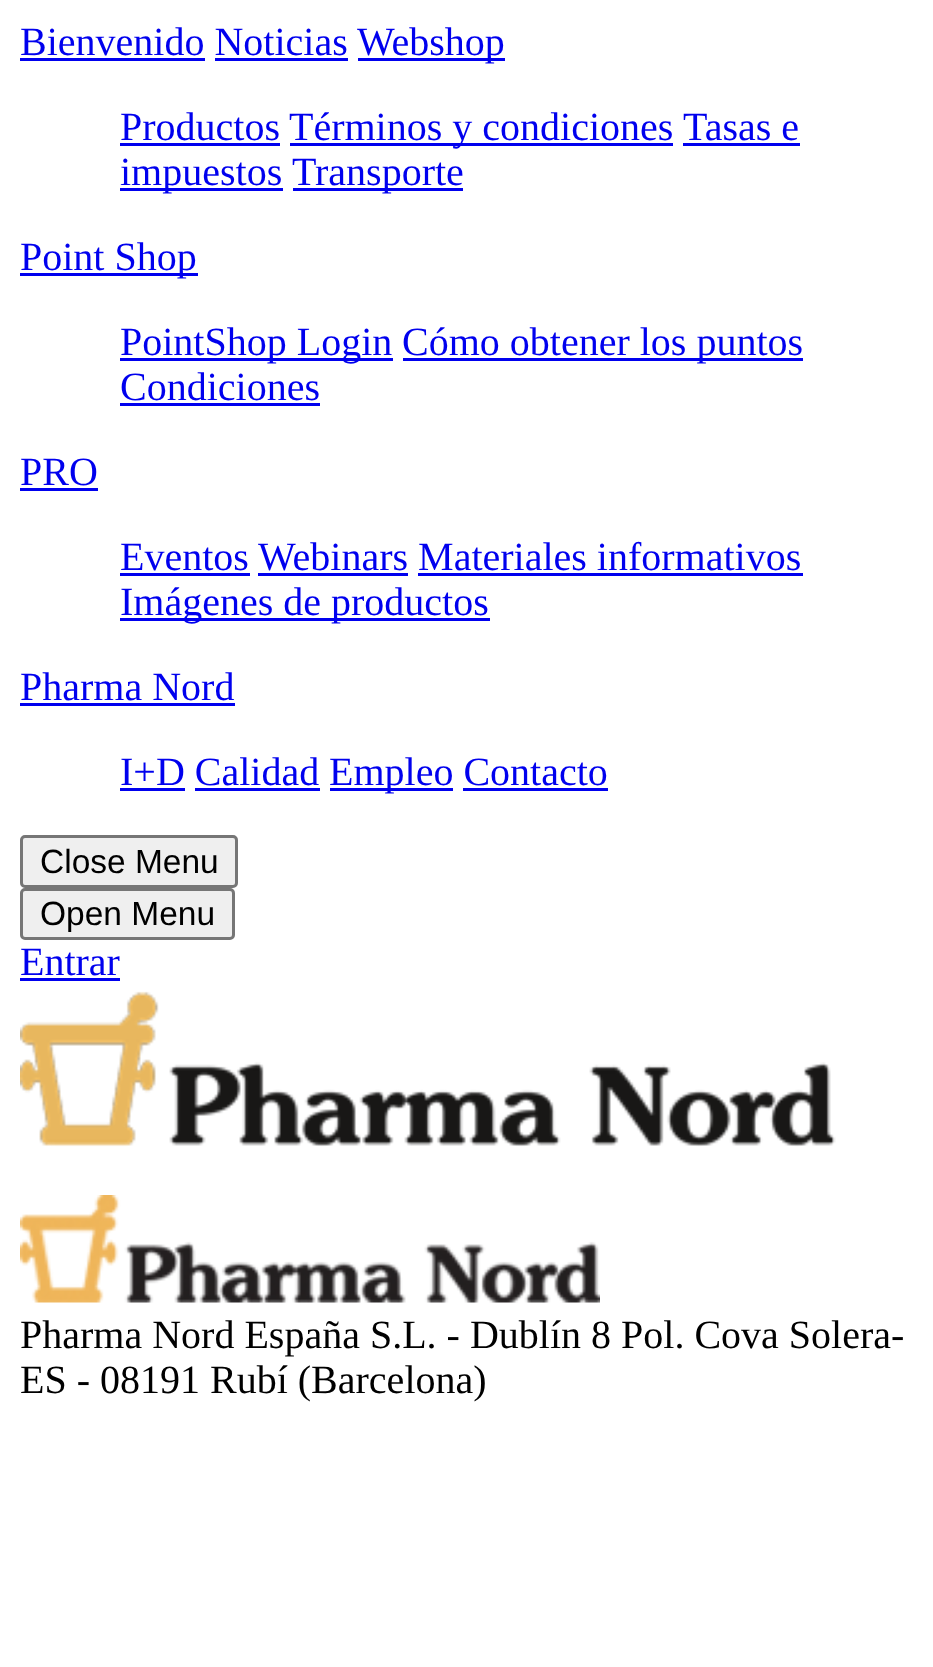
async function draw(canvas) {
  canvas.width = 933
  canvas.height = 1667
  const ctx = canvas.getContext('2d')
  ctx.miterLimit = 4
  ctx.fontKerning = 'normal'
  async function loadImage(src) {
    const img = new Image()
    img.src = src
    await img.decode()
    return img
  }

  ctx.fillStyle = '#fff'
  ctx.fillRect(0, 0, 933, 1667)
  ctx.font = '40px Liberation Serif'
  ctx.fillStyle = '#00e'
  ctx.fillText('Bienvenido Noticias', 20, 55)
  ctx.fillRect(20, 58, 185, 3)
  ctx.fillRect(358, 58, 147, 3)
  ctx.fillText('Webshop', 357, 55)
  ctx.fillRect(215, 58, 133, 3)
  ctx.fillText('Productos', 120, 140)
  ctx.fillRect(120, 143, 160, 3)
  ctx.fillRect(290, 143, 383, 3)
  ctx.fillText('Términos y condiciones', 289, 140)
  ctx.fillText('Tasas e', 683, 140)
  ctx.fillRect(683, 143, 117, 3)
  ctx.fillRect(120, 188, 163, 3)
  ctx.fillText('impuestos', 120, 185)
  ctx.fillRect(293, 188, 170, 3)
  ctx.fillText('Transporte', 292, 185)
  ctx.fillRect(20, 273, 178, 3)
  ctx.fillText('Point Shop', 20, 270)
  ctx.fillRect(120, 358, 273, 3)
  ctx.fillText('PointShop Login', 120, 355)
  ctx.fillRect(403, 358, 400, 3)
  ctx.fillText('Cómo obtener los puntos', 402, 355)
  ctx.fillText('Condiciones', 120, 400)
  ctx.fillRect(120, 403, 200, 3)
  ctx.fillText('PRO', 20, 485)
  ctx.fillRect(20, 488, 78, 3)
  ctx.fillText('Eventos', 120, 570)
  ctx.fillRect(120, 573, 130, 3)
  ctx.fillText('Webinars Materiales informativos', 258, 570)
  ctx.fillRect(258, 573, 150, 3)
  ctx.fillRect(418, 573, 385, 3)
  ctx.fillRect(120, 618, 370, 3)
  ctx.fillText('Imágenes de productos', 120, 615)
  ctx.fillText('Pharma Nord', 20, 700)
  ctx.fillRect(20, 703, 215, 3)
  ctx.fillText('I+D Calidad', 120, 785)
  ctx.fillRect(120, 788, 65, 3)
  ctx.fillRect(330, 788, 123, 3)
  ctx.fillText('Empleo Contacto', 329, 785)
  ctx.fillRect(195, 788, 125, 3)
  ctx.fillRect(463, 788, 145, 3)
  ctx.fillStyle = '#efefef'
  ctx.beginPath()
  ctx.roundRect(21.5, 836.5, 215, 50, 3.5)
  ctx.fill()
  ctx.strokeStyle = '#767676'
  ctx.lineWidth = 3
  ctx.stroke()
  ctx.font = '33.5px Liberation Sans'
  ctx.fillStyle = '#000'
  ctx.fillText('Close Menu', 40, 873)
  ctx.fillStyle = '#efefef'
  ctx.beginPath()
  ctx.roundRect(21.5, 889.5, 212, 49, 3.5)
  ctx.fill()
  ctx.stroke()
  ctx.fillStyle = '#000'
  ctx.fillText('Open Menu', 40, 925)
  ctx.font = '40px Liberation Serif'
  ctx.fillStyle = '#00e'
  ctx.fillText('Entrar', 20, 975)
  ctx.fillRect(20, 978, 100, 3)
  ctx.drawImage(await loadImage('image0.png'), 20, 991, 816, 156)
  ctx.drawImage(await loadImage('image1.png'), 20, 1195, 580, 108)
  ctx.fillStyle = '#000'
  ctx.fillText('Pharma Nord España S.L. - Dublín 8 Pol. Cova Solera-', 20, 1348)
  ctx.fillText('ES - 08191 Rubí (Barcelona)', 20, 1393)
}

draw(document.querySelector('canvas'))
